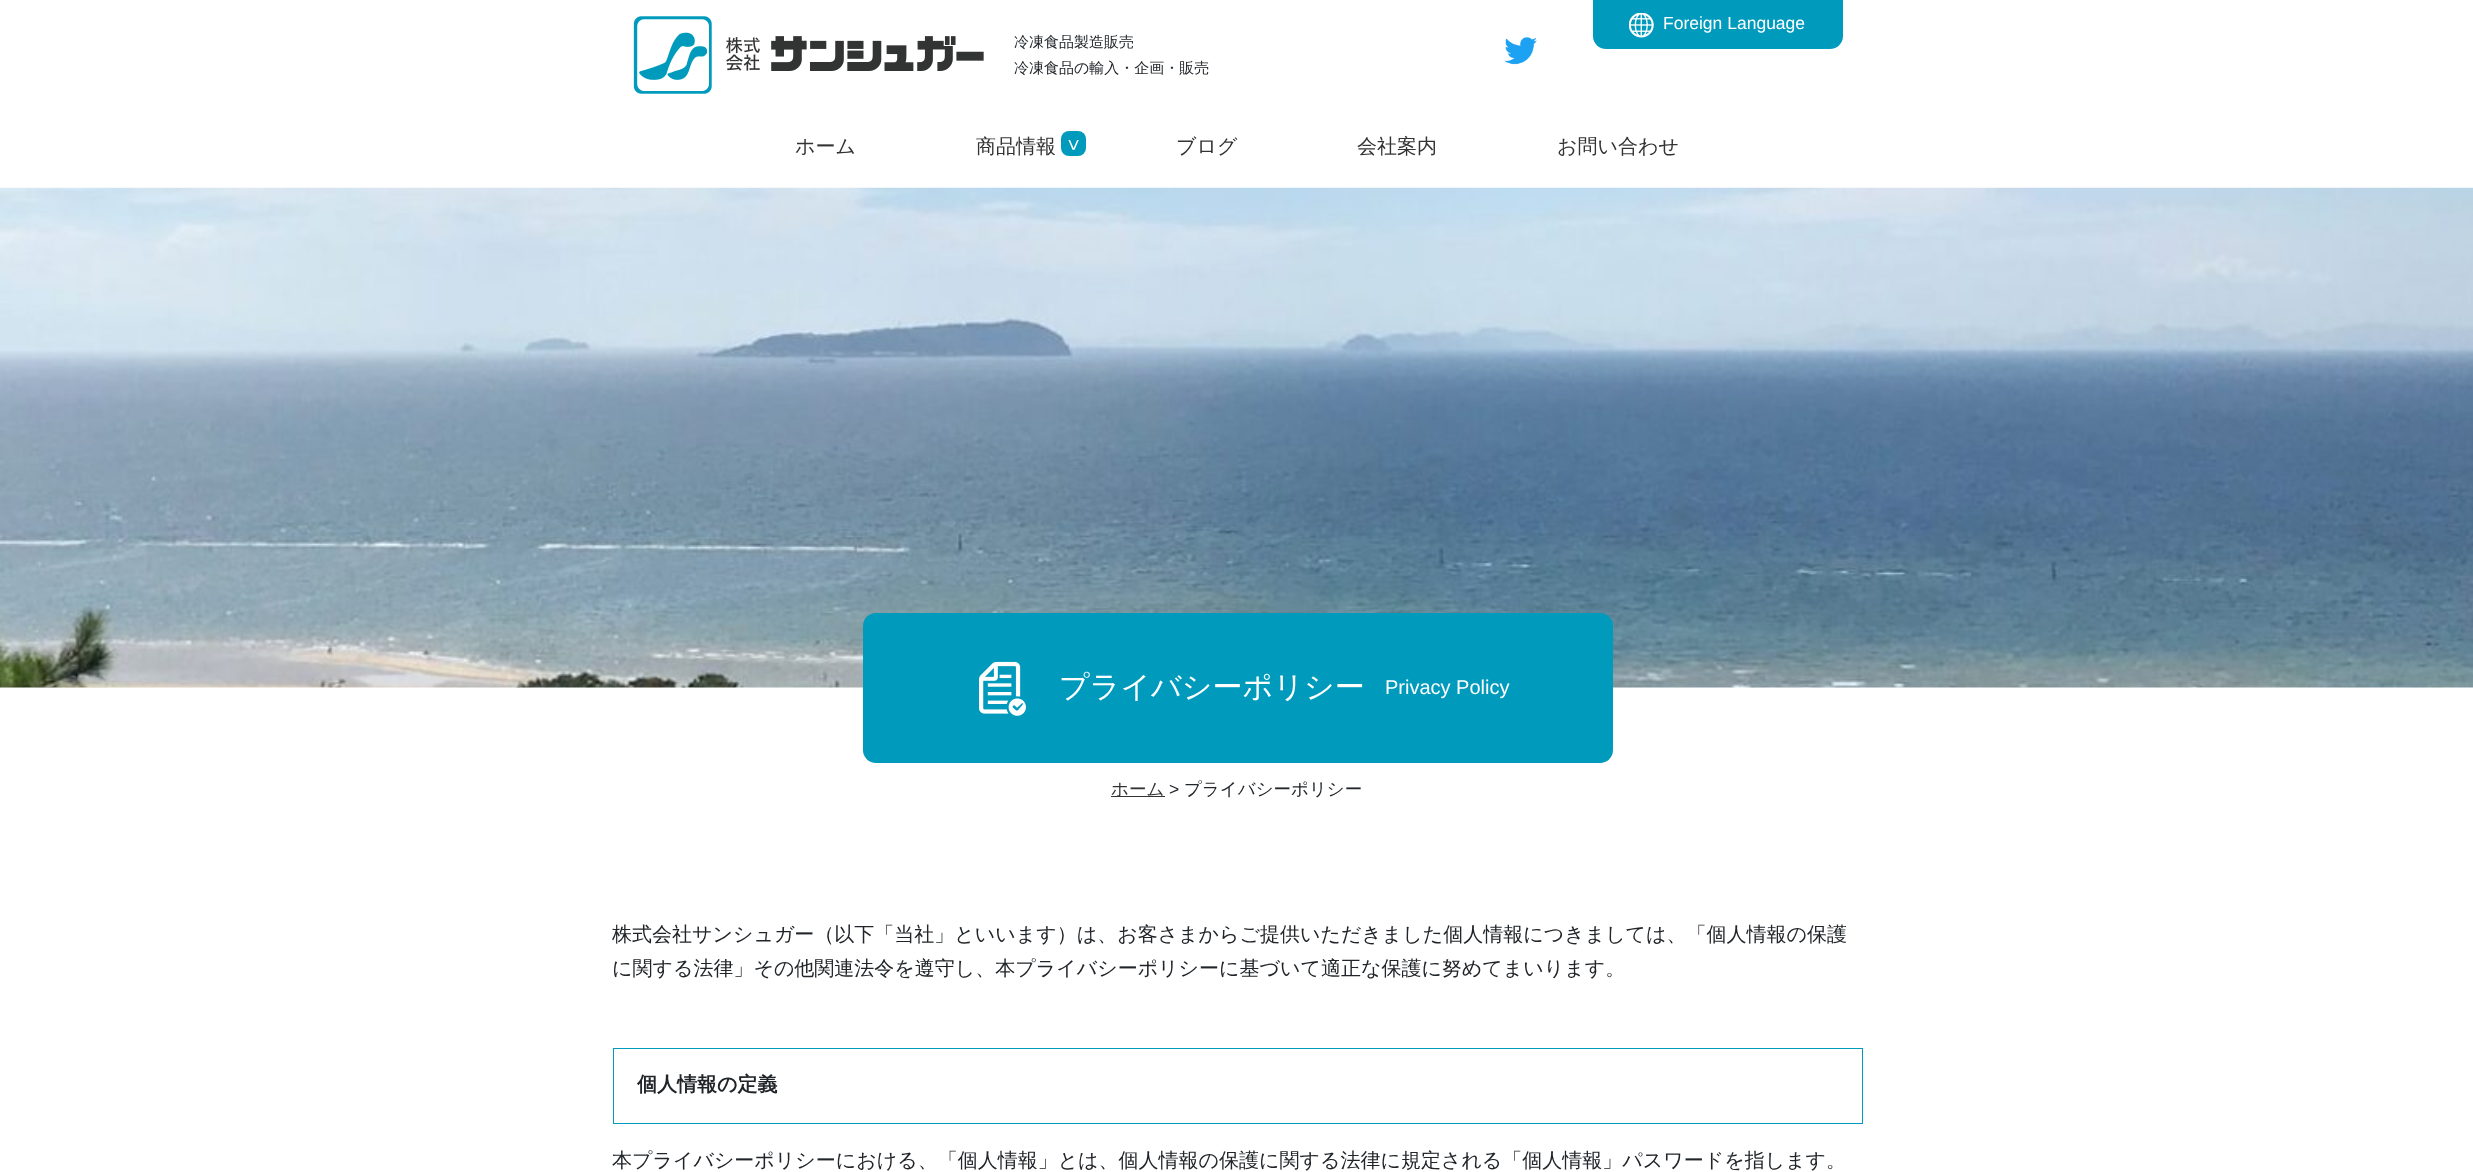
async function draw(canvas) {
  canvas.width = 2473
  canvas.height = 1172
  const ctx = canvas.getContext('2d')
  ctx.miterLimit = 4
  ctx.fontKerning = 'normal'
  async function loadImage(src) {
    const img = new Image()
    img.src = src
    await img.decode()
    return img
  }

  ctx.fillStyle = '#fff'
  ctx.fillRect(0, 0, 2473, 1172)
  ctx.fillStyle = '#009bbc'
  ctx.beginPath()
  ctx.roundRect(1593, 0, 250, 49, [0, 0, 13, 13])
  ctx.fill()
  ctx.drawImage(await loadImage('image0.png'), 1629, 13, 25, 25)
  ctx.font = '17.5px Liberation Sans'
  ctx.fillStyle = '#fff'
  ctx.fillText('Foreign Language', 1663, 29)
  ctx.drawImage(await loadImage('image1.png'), 633, 16, 351, 78)
  ctx.font = '500 15px WenQuanYi Zen Hei'
  ctx.fillStyle = '#212529'
  ctx.fillText('冷凍食品製造販売', 1014, 47)
  ctx.fillText('冷凍食品の輸入・企画・販売', 1014, 73)
  ctx.drawImage(await loadImage('image2.png'), 1504, 37, 33, 28)
  ctx.font = '500 20px WenQuanYi Zen Hei'
  ctx.fillStyle = '#333'
  ctx.fillText('ホーム', 795, 153)
  ctx.fillText('商品情報', 976, 153)
  ctx.fillStyle = '#009bbc'
  ctx.beginPath()
  ctx.roundRect(1061, 131, 25, 25, 8)
  ctx.fill()
  ctx.font = '20px Liberation Sans'
  ctx.fillStyle = '#fff'
  ctx.save()
  ctx.translate(1067, 139)
  ctx.rotate(90 * Math.PI / 180)
  ctx.fillText('>', 0, 0)
  ctx.restore()
  ctx.font = '500 20px WenQuanYi Zen Hei'
  ctx.fillStyle = '#333'
  ctx.fillText('ブログ', 1176, 153)
  ctx.fillText('会社案内', 1357, 153)
  ctx.fillText('お問い合わせ', 1557, 153)
  ctx.drawImage(await loadImage('image3.png'), 0, 187, 2473, 501)
  ctx.fillStyle = '#009bbc'
  ctx.beginPath()
  ctx.roundRect(863, 613, 750, 150, 13)
  ctx.fill()
  ctx.drawImage(await loadImage('image4.png'), 979, 661, 47, 55)
  ctx.font = '500 30px WenQuanYi Zen Hei'
  ctx.fillStyle = '#fff'
  ctx.fillText('プライバシーポリシー', 1059, 697)
  ctx.font = '20px Liberation Sans'
  ctx.fillText('Privacy Policy', 1385, 694)
  ctx.fillStyle = '#333'
  ctx.fillRect(1111, 796, 54, 1)
  ctx.font = '500 17.5px WenQuanYi Zen Hei'
  ctx.fillText('ホーム', 1111, 795)
  ctx.font = '17.5px Liberation Sans'
  ctx.fillStyle = '#212529'
  ctx.fillText('>', 1169, 795)
  ctx.font = '500 17.5px WenQuanYi Zen Hei'
  ctx.fillText('プライバシーポリシー', 1184, 795)
  ctx.font = '500 20px WenQuanYi Zen Hei'
  ctx.fillText('株式会社サンシュガー（以下「当社」といいます）は、お客さまからご提供いただきました個人情報につきましては、「個人情報の保護', 612, 941)
  ctx.fillText('に関する法律」その他関連法令を遵守し、本プライバシーポリシーに基づいて適正な保護に努めてまいります。', 612, 975)
  ctx.strokeStyle = '#009bbc'
  ctx.strokeRect(613.5, 1048.5, 1249, 75)
  ctx.font = 'bold 20px WenQuanYi Zen Hei'
  ctx.fillText('個人情報の定義', 637, 1091)
  ctx.font = '500 20px WenQuanYi Zen Hei'
  ctx.fillText('本プライバシーポリシーにおける、「個人情報」とは、個人情報の保護に関する法律に規定される「個人情報」パスワードを指します。', 612, 1167)
}

draw(document.querySelector('canvas'))
